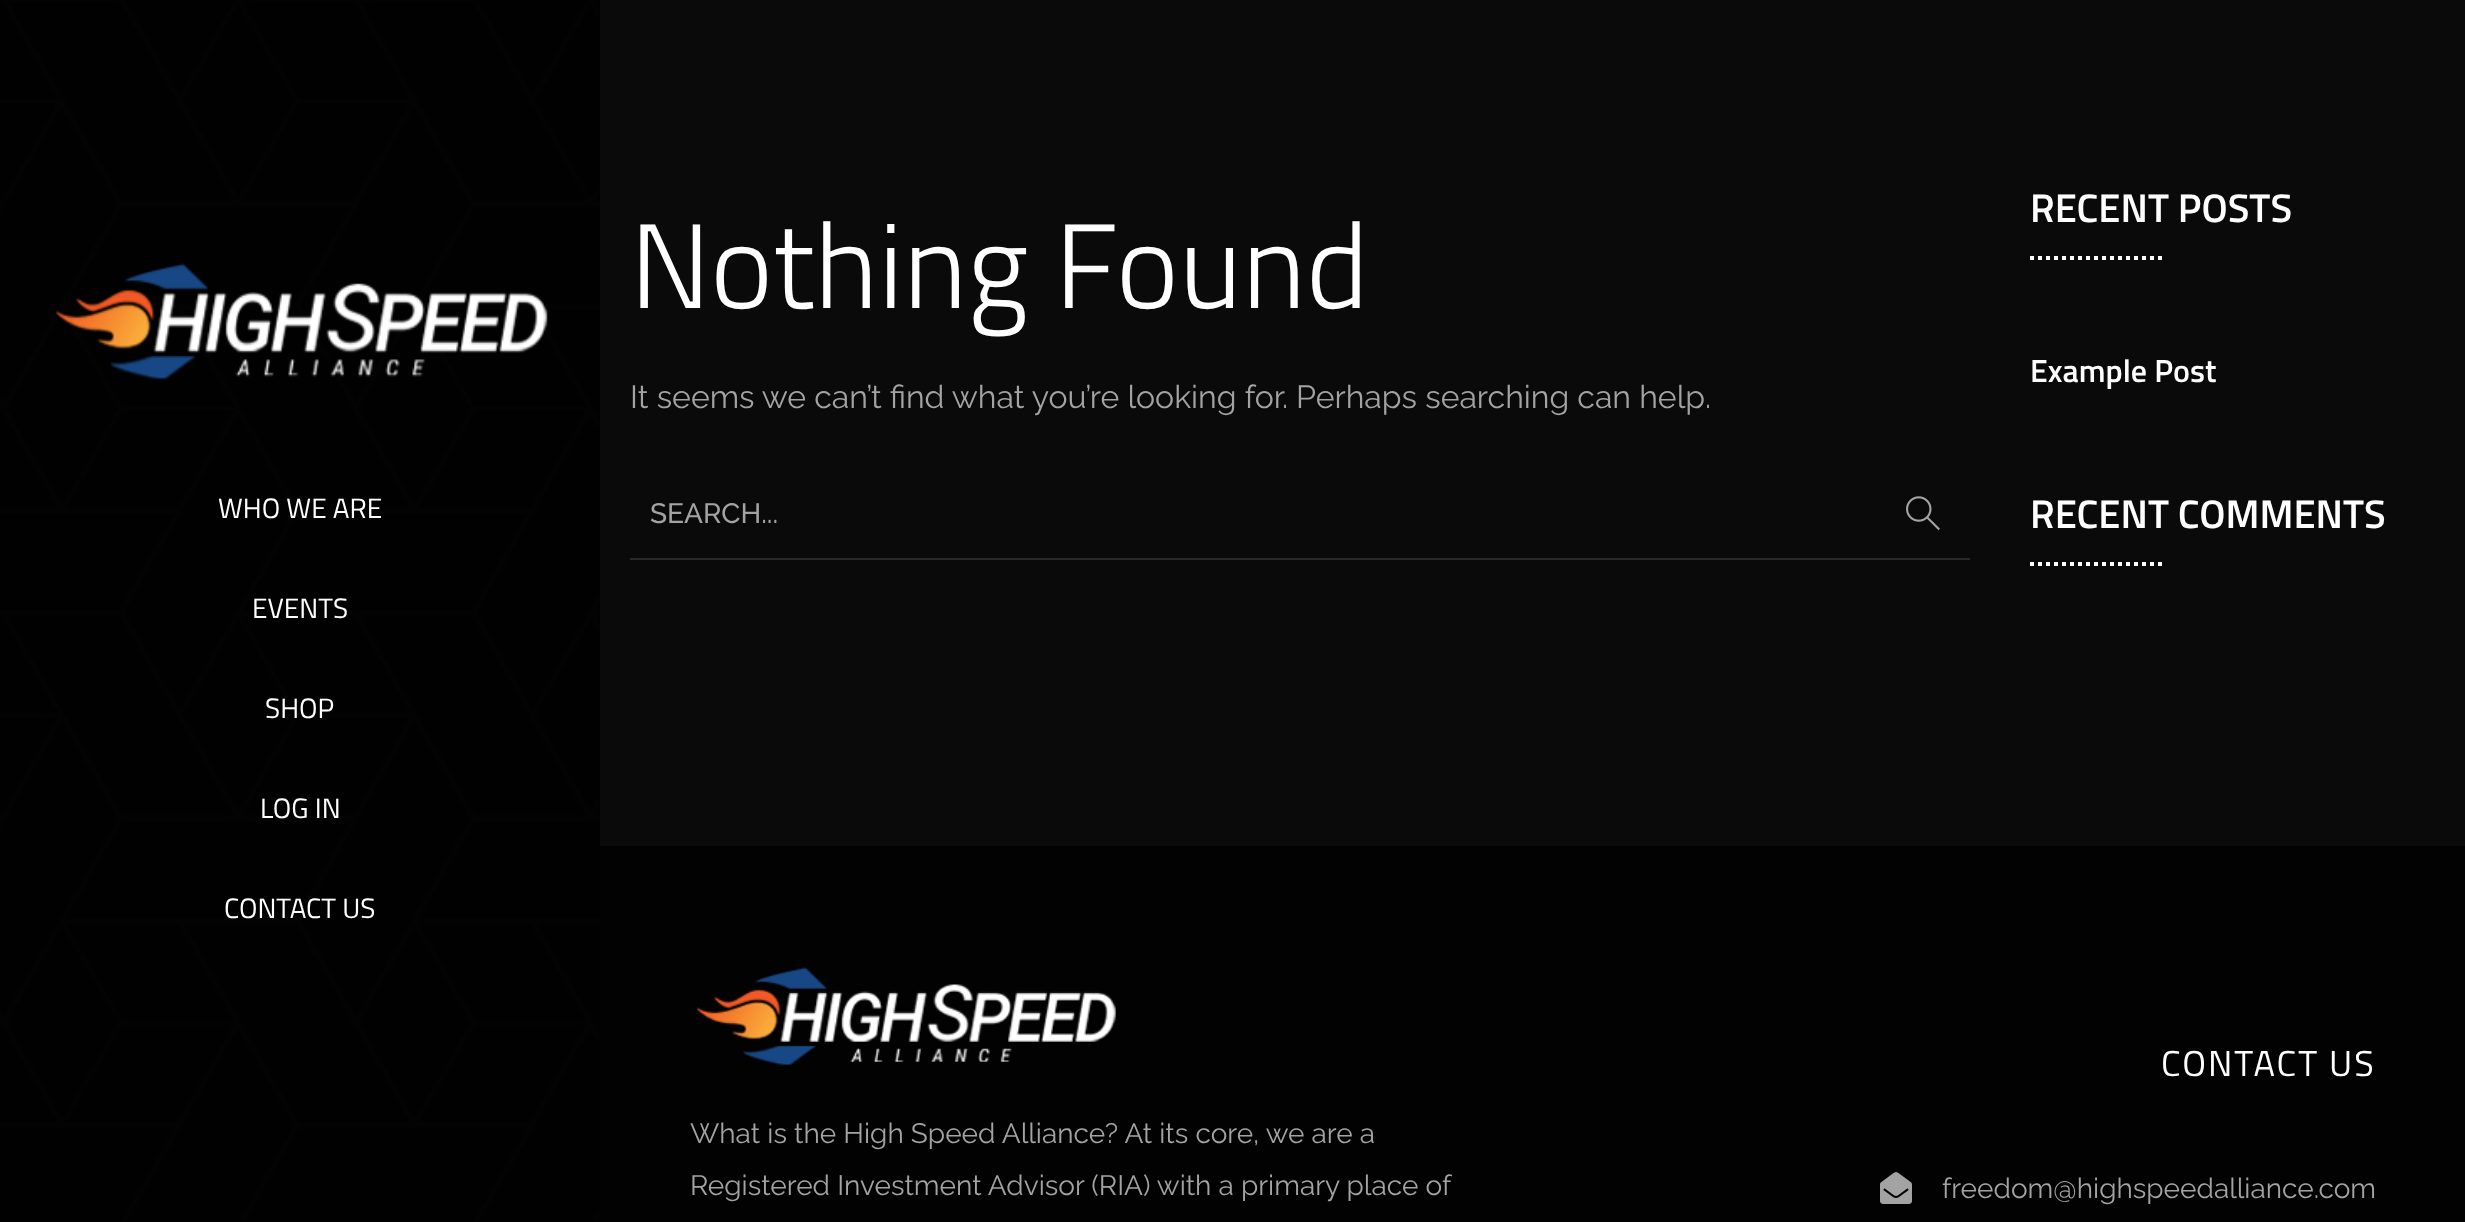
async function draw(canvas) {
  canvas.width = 2465
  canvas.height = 1222
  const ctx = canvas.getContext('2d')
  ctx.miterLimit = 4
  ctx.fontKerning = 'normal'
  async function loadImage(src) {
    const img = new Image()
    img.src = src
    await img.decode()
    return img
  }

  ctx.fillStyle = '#0a0a0a'
  ctx.fillRect(0, 0, 2465, 1222)
  ctx.fillStyle = '#010101'
  ctx.fillRect(0, 0, 600, 1222)
  ctx.font = '300 120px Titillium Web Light'
  ctx.fillStyle = '#fff'
  ctx.fillText('Nothing Found', 630, 308)
  ctx.font = '32px Raleway'
  ctx.fillStyle = '#a3a3a3'
  ctx.fillText('It seems we can’t find what you’re looking for. Perhaps searching can help.', 630, 408)
  ctx.fillStyle = '#292929'
  ctx.fillRect(630, 558, 1340, 2)
  ctx.font = '500 28px Raleway'
  ctx.fillStyle = '#a3a3a3'
  ctx.fillText('SEARCH...', 650, 523)
  ctx.drawImage(await loadImage('image0.png'), 1906, 496, 34, 35)
  ctx.font = '600 40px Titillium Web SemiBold'
  ctx.fillStyle = '#fff'
  ctx.fillText('RECENT POSTS', 2030, 222)
  ctx.beginPath()
  ctx.moveTo(2030, 258)
  ctx.lineTo(2162, 258)
  ctx.strokeStyle = '#fff'
  ctx.lineWidth = 4
  ctx.setLineDash([4, 4])
  ctx.stroke()
  ctx.font = '600 32px Titillium Web SemiBold'
  ctx.fillText('Example Post', 2030, 382)
  ctx.font = '600 40px Titillium Web SemiBold'
  ctx.fillText('RECENT COMMENTS', 2030, 528)
  ctx.beginPath()
  ctx.moveTo(2030, 564)
  ctx.lineTo(2162, 564)
  ctx.stroke()
  ctx.drawImage(await loadImage('image1.png'), 0, 0, 600, 1222)
  ctx.drawImage(await loadImage('image2.png'), 56, 263, 492, 117)
  ctx.font = '28px Titillium Web'
  ctx.fillText('WHO WE ARE', 218, 518)
  ctx.fillText('EVENTS', 252, 618)
  ctx.fillText('SHOP', 265, 718)
  ctx.fillText('LOG IN', 260, 818)
  ctx.fillText('CONTACT US', 224, 918)
  ctx.fillStyle = '#020202'
  ctx.fillRect(600, 846, 1865, 376)
  ctx.drawImage(await loadImage('image3.png'), 697, 967, 419, 98)
  ctx.font = '28px Raleway'
  ctx.fillStyle = '#a3a3a3'
  ctx.fillText('What is the High Speed Alliance? At its core, we are a', 690, 1143)
  ctx.fillText('Registered Investment Advisor (RIA) with a primary place of', 690, 1195)
  ctx.letterSpacing = '2px'
  ctx.font = '36px Titillium Web'
  ctx.fillStyle = '#fff'
  ctx.fillText('CONTACT US', 2161, 1076)
  ctx.drawImage(await loadImage('image4.png'), 1880, 1172, 32, 32)
  ctx.letterSpacing = '0px'
  ctx.font = '28px Raleway'
  ctx.fillStyle = '#a3a3a3'
  ctx.fillText('freedom@highspeedalliance.com', 1942, 1198)
}

draw(document.querySelector('canvas'))
